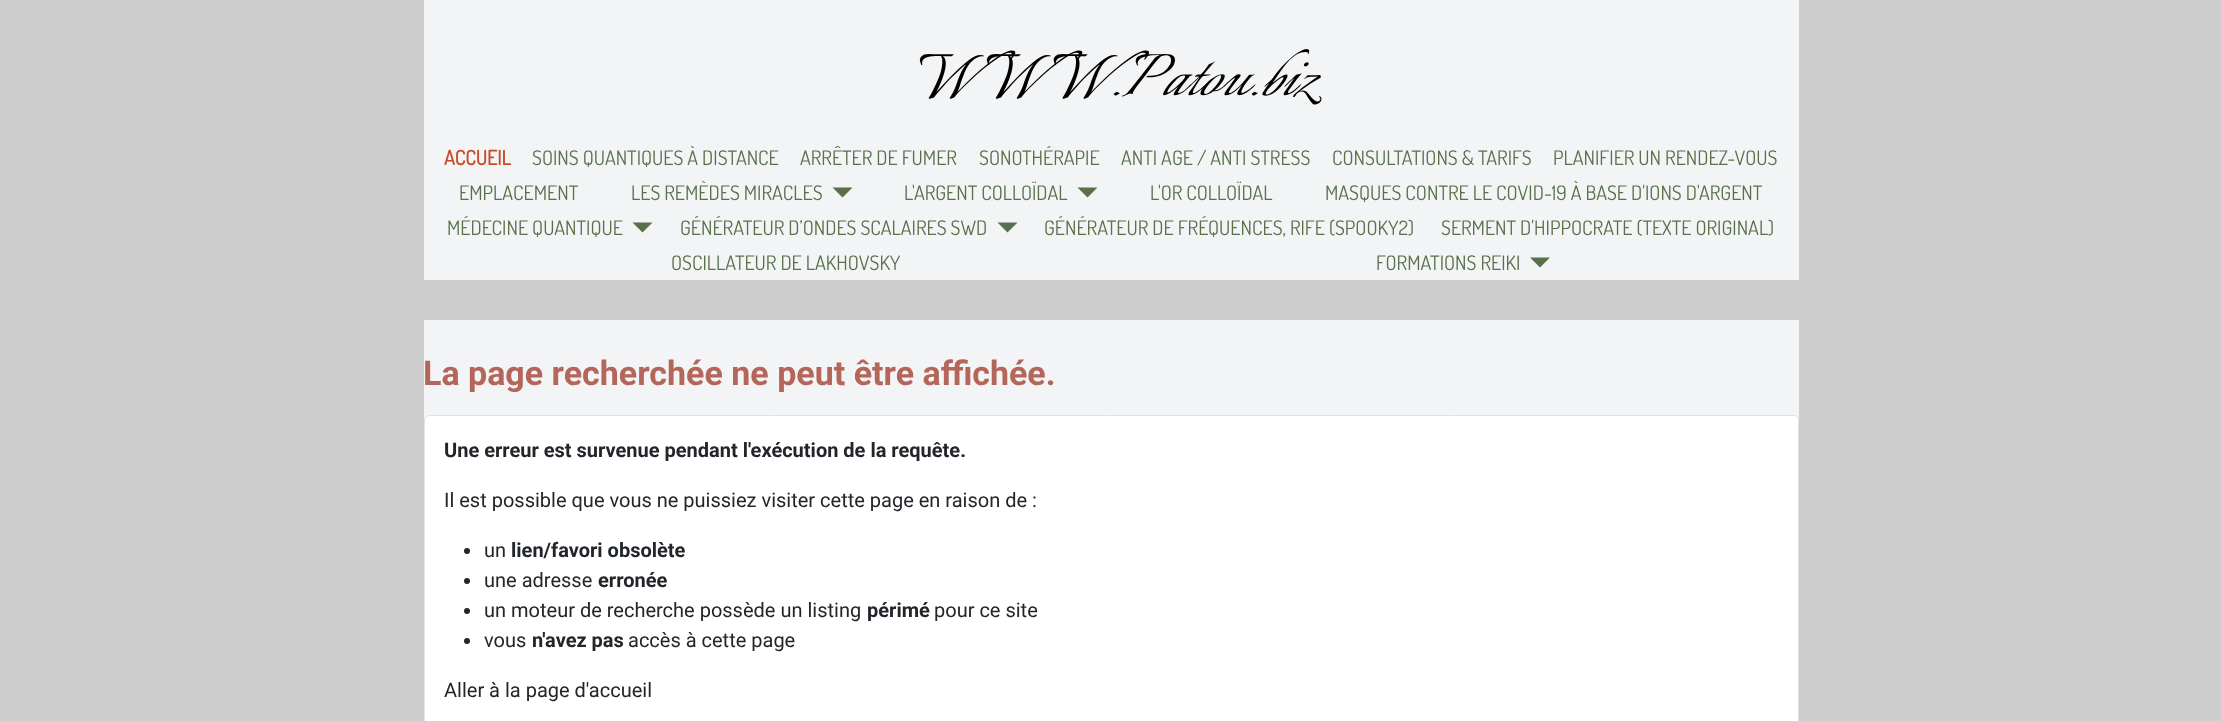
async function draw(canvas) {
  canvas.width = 2221
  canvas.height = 721
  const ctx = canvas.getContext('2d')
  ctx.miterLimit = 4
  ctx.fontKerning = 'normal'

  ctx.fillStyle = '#cdcdcd'
  ctx.fillRect(0, 0, 2221, 721)
  ctx.fillStyle = '#f3f4f5'
  ctx.fillRect(424, 0, 1375, 280)
  ctx.font = 'italic 75px Italianno'
  ctx.fillStyle = '#000'
  ctx.fillText('WWW.Patou.biz', 910, 95)
  ctx.font = 'bold 20px Dosis'
  ctx.fillStyle = '#c84c27'
  ctx.fillText('ACCUEIL', 444, 165)
  ctx.font = '20px Dosis'
  ctx.fillStyle = '#5a704a'
  ctx.fillText('SOINS QUANTIQUES À DISTANCE', 532, 165)
  ctx.fillText('ARRÊTER DE FUMER', 800, 165)
  ctx.fillText('SONOTHÉRAPIE', 979, 165)
  ctx.fillText('ANTI AGE / ANTI STRESS', 1121, 165)
  ctx.fillText('CONSULTATIONS & TARIFS', 1332, 165)
  ctx.fillText('PLANIFIER UN RENDEZ-VOUS', 1553, 165)
  ctx.fillText('EMPLACEMENT', 459, 200)
  ctx.fillText('LES REMÈDES MIRACLES', 631, 200)
  ctx.beginPath()
  ctx.moveTo(832.5, 187.5)
  ctx.lineTo(852.5, 187.5)
  ctx.lineTo(842.5, 197.5)
  ctx.closePath()
  ctx.fill()
  ctx.fillText('L\'ARGENT COLLOÏDAL', 904, 200)
  ctx.beginPath()
  ctx.moveTo(1077.5, 187.5)
  ctx.lineTo(1097.5, 187.5)
  ctx.lineTo(1087.5, 197.5)
  ctx.closePath()
  ctx.fill()
  ctx.fillText('L\'OR COLLOÏDAL', 1150, 200)
  ctx.fillText('MASQUES CONTRE LE COVID-19 À BASE D\'IONS D\'ARGENT', 1325, 200)
  ctx.fillText('MÉDECINE QUANTIQUE', 447, 235)
  ctx.beginPath()
  ctx.moveTo(632.5, 222.5)
  ctx.lineTo(652.5, 222.5)
  ctx.lineTo(642.5, 232.5)
  ctx.closePath()
  ctx.fill()
  ctx.fillText('GÉNÉRATEUR D’ONDES SCALAIRES SWD', 680, 235)
  ctx.beginPath()
  ctx.moveTo(997.5, 222.5)
  ctx.lineTo(1017.5, 222.5)
  ctx.lineTo(1007.5, 232.5)
  ctx.closePath()
  ctx.fill()
  ctx.fillText('GÉNÉRATEUR DE FRÉQUENCES, RIFE (SPOOKY2)', 1044, 235)
  ctx.fillText('SERMENT D\'HIPPOCRATE (TEXTE ORIGINAL)', 1441, 235)
  ctx.fillText('OSCILLATEUR DE LAKHOVSKY', 671, 270)
  ctx.fillText('FORMATIONS REIKI', 1376, 270)
  ctx.beginPath()
  ctx.moveTo(1530, 257.5)
  ctx.lineTo(1550, 257.5)
  ctx.lineTo(1540, 267.5)
  ctx.closePath()
  ctx.fill()
  ctx.fillStyle = '#f3f4f6'
  ctx.fillRect(424, 320, 1375, 100)
  ctx.font = 'bold 34px Roboto'
  ctx.fillStyle = '#b5665a'
  ctx.fillText('La page recherchée ne peut être affichée.', 423, 385)
  ctx.fillStyle = '#fff'
  ctx.beginPath()
  ctx.roundRect(424.5, 415.5, 1374, 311, 4.5)
  ctx.fill()
  ctx.strokeStyle = '#dfe3e7'
  ctx.stroke()
  ctx.font = 'bold 20px Roboto'
  ctx.fillStyle = '#22262a'
  ctx.fillText('Une erreur est survenue pendant l\'exécution de la requête.', 444, 457)
  ctx.font = '20px Roboto'
  ctx.fillText('Il est possible que vous ne puissiez visiter cette page en raison de :', 444, 507)
  ctx.beginPath()
  ctx.arc(467, 551, 3, 0, 2 * Math.PI)
  ctx.fill()
  ctx.fillText('un', 484, 557)
  ctx.font = 'bold 20px Roboto'
  ctx.fillText('lien/favori obsolète', 511, 557)
  ctx.beginPath()
  ctx.arc(467, 581, 3, 0, 2 * Math.PI)
  ctx.fill()
  ctx.font = '20px Roboto'
  ctx.fillText('une adresse', 484, 587)
  ctx.font = 'bold 20px Roboto'
  ctx.fillText('erronée', 598, 587)
  ctx.beginPath()
  ctx.arc(467, 611, 3, 0, 2 * Math.PI)
  ctx.fill()
  ctx.font = '20px Roboto'
  ctx.fillText('un moteur de recherche possède un listing', 484, 617)
  ctx.font = 'bold 20px Roboto'
  ctx.fillText('périmé', 867, 617)
  ctx.font = '20px Roboto'
  ctx.fillText('pour ce site', 934, 617)
  ctx.beginPath()
  ctx.arc(467, 641, 3, 0, 2 * Math.PI)
  ctx.fill()
  ctx.fillText('vous', 484, 647)
  ctx.font = 'bold 20px Roboto'
  ctx.fillText('n\'avez pas', 532, 647)
  ctx.font = '20px Roboto'
  ctx.fillText('accès à cette page', 628, 647)
  ctx.fillText('Aller à la page d\'accueil', 444, 697)
}

draw(document.querySelector('canvas'))
